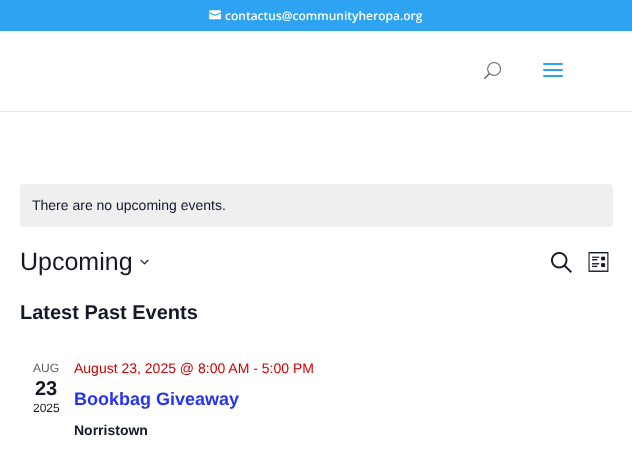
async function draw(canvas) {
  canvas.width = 632
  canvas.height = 459
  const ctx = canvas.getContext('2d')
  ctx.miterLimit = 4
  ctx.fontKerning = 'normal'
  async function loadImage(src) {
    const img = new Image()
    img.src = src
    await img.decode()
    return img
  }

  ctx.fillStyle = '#fff'
  ctx.fillRect(0, 0, 632, 459)
  ctx.fillStyle = '#2ea3f2'
  ctx.fillRect(0, 0, 632, 31)
  ctx.drawImage(await loadImage('image0.png'), 209, 10, 12, 10)
  ctx.font = '600 12px Open Sans'
  ctx.fillStyle = '#fff'
  ctx.fillText('contactus@communityheropa.org', 225, 20)
  ctx.fillStyle = '#e6e6e6'
  ctx.fillRect(0, 111, 632, 1)
  ctx.drawImage(await loadImage('image1.png'), 484, 62, 17, 18)
  ctx.drawImage(await loadImage('image2.png'), 543, 63, 20, 14)
  ctx.fillStyle = '#efeff0'
  ctx.beginPath()
  ctx.roundRect(20, 184, 593, 43, 4)
  ctx.fill()
  ctx.font = '14px Liberation Sans'
  ctx.fillStyle = '#141827'
  ctx.fillText('There are no upcoming events.', 32, 210)
  ctx.font = '25px Liberation Sans'
  ctx.fillText('Upcoming', 20, 270)
  ctx.drawImage(await loadImage('image3.png'), 140, 259, 9, 6)
  ctx.drawImage(await loadImage('image4.png'), 551, 252, 21, 21)
  ctx.drawImage(await loadImage('image5.png'), 588, 252, 21, 20)
  ctx.font = 'bold 20px Liberation Sans'
  ctx.fillText('Latest Past Events', 20, 319)
  ctx.font = '12px Liberation Sans'
  ctx.fillStyle = '#5d5d5d'
  ctx.fillText('AUG', 33, 372)
  ctx.font = 'bold 20px Liberation Sans'
  ctx.fillStyle = '#141827'
  ctx.fillText('23', 35, 395)
  ctx.font = '12px Liberation Sans'
  ctx.fillText('2025', 33, 412)
  ctx.font = '14px Liberation Sans'
  ctx.fillStyle = '#d30000'
  ctx.fillText('August 23, 2025 @ 8:00 AM - 5:00 PM', 74, 373)
  ctx.font = 'bold 18px Liberation Sans'
  ctx.fillStyle = '#2633ef'
  ctx.fillText('Bookbag Giveaway', 74, 405)
  ctx.font = 'bold 14px Liberation Sans'
  ctx.fillStyle = '#141827'
  ctx.fillText('Norristown', 74, 435)
}

draw(document.querySelector('canvas'))
